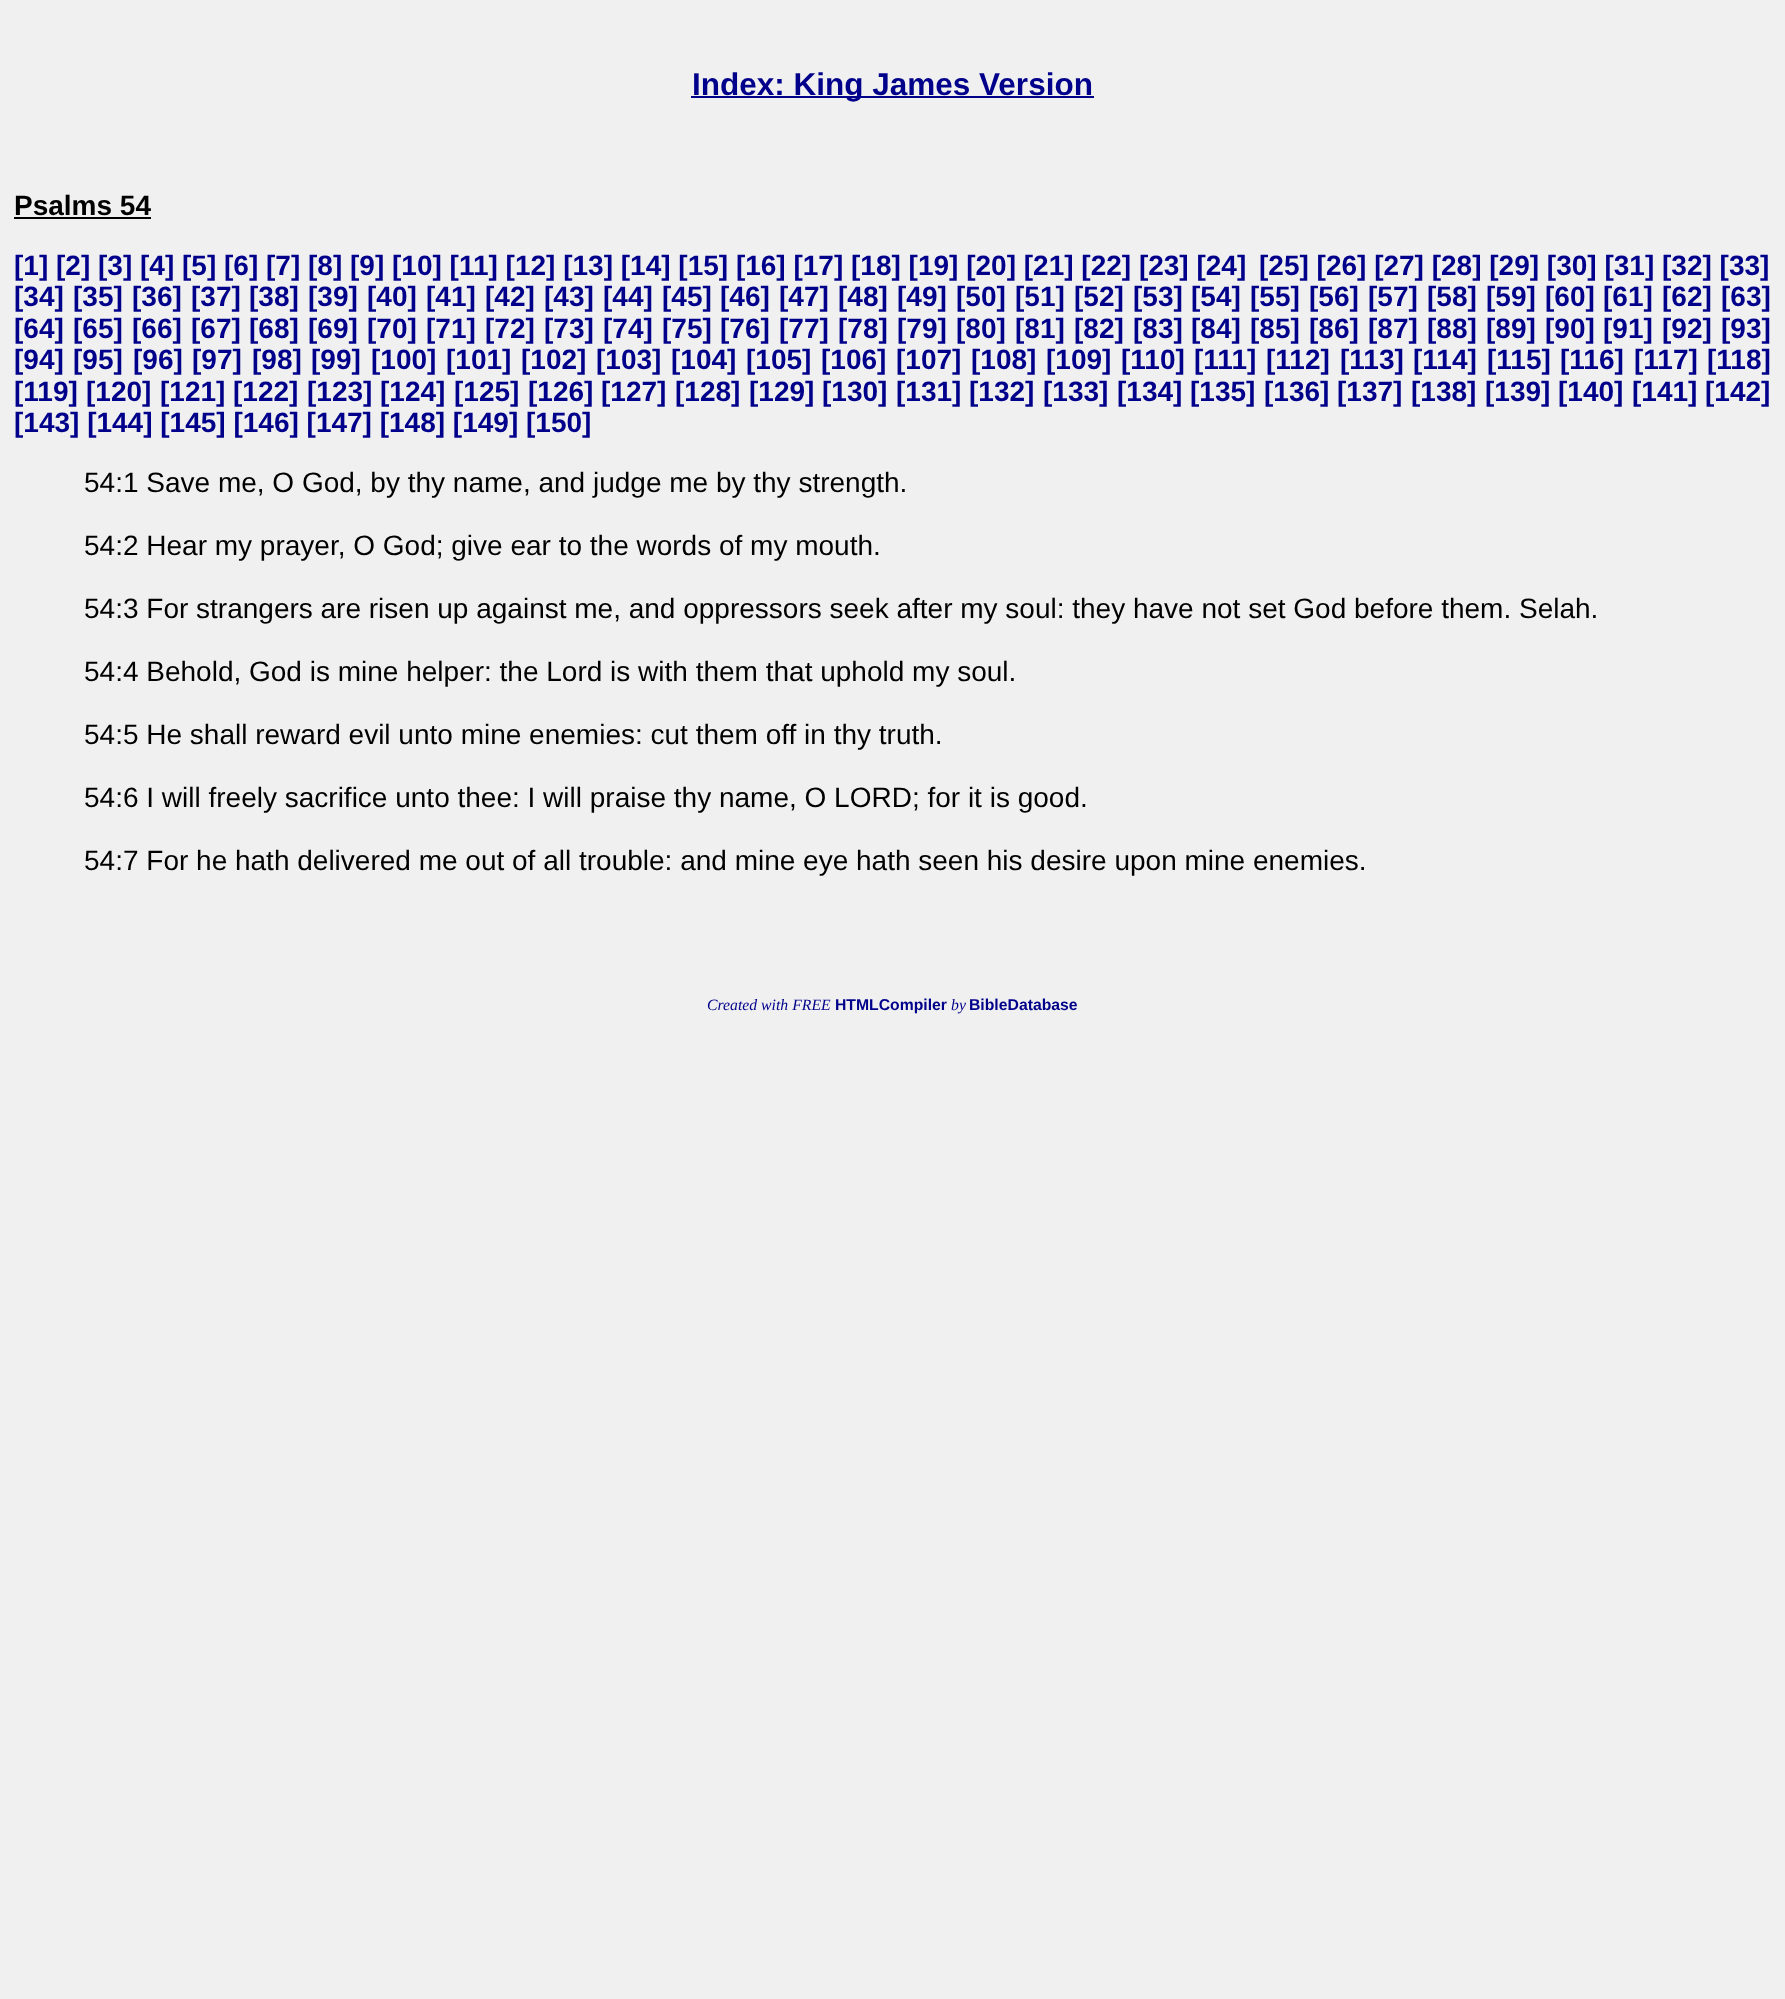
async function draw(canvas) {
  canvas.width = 1785
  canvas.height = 1999
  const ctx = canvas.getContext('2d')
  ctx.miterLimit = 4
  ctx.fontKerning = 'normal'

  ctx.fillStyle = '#f0f0f0'
  ctx.fillRect(0, 0, 1785, 1999)
  ctx.fillStyle = '#00008b'
  ctx.fillRect(691, 96, 403, 2)
  ctx.font = 'bold 31.5px Liberation Sans'
  ctx.fillText('Index: King James Version', 692, 95)
  ctx.font = 'bold 28px Liberation Sans'
  ctx.fillStyle = '#000'
  ctx.fillText('Psalms 54', 14, 215)
  ctx.fillRect(14, 217, 137, 2)
  ctx.fillStyle = '#00008b'
  ctx.fillText('[1] [2] [3] [4] [5] [6] [7] [8] [9] [10] [11] [12] [13] [14] [15] [16] [17] [18] [19] [20] [21] [22] [23] [24]', 14, 275)
  ctx.fillText('[25] [26] [27] [28] [29] [30] [31] [32] [33]', 1259, 275)
  ctx.fillText('[34]', 14, 306)
  ctx.fillText('[35]', 73, 306)
  ctx.fillText('[36]', 132, 306)
  ctx.fillText('[37]', 191, 306)
  ctx.fillText('[38]', 249, 306)
  ctx.fillText('[39]', 308, 306)
  ctx.fillText('[40]', 367, 306)
  ctx.fillText('[41]', 426, 306)
  ctx.fillText('[42]', 485, 306)
  ctx.fillText('[43]', 544, 306)
  ctx.fillText('[44]', 603, 306)
  ctx.fillText('[45]', 662, 306)
  ctx.fillText('[46]', 720, 306)
  ctx.fillText('[47]', 779, 306)
  ctx.fillText('[48]', 838, 306)
  ctx.fillText('[49]', 897, 306)
  ctx.fillText('[50]', 956, 306)
  ctx.fillText('[51]', 1015, 306)
  ctx.fillText('[52]', 1074, 306)
  ctx.fillText('[53]', 1133, 306)
  ctx.fillText('[54]', 1191, 306)
  ctx.fillText('[55]', 1250, 306)
  ctx.fillText('[56]', 1309, 306)
  ctx.fillText('[57]', 1368, 306)
  ctx.fillText('[58]', 1427, 306)
  ctx.fillText('[59]', 1486, 306)
  ctx.fillText('[60]', 1545, 306)
  ctx.fillText('[61]', 1603, 306)
  ctx.fillText('[62]', 1662, 306)
  ctx.fillText('[63]', 1721, 306)
  ctx.fillText('[64]', 14, 338)
  ctx.fillText('[65]', 73, 338)
  ctx.fillText('[66]', 132, 338)
  ctx.fillText('[67]', 191, 338)
  ctx.fillText('[68]', 249, 338)
  ctx.fillText('[69]', 308, 338)
  ctx.fillText('[70]', 367, 338)
  ctx.fillText('[71]', 426, 338)
  ctx.fillText('[72]', 485, 338)
  ctx.fillText('[73]', 544, 338)
  ctx.fillText('[74]', 603, 338)
  ctx.fillText('[75]', 662, 338)
  ctx.fillText('[76]', 720, 338)
  ctx.fillText('[77]', 779, 338)
  ctx.fillText('[78]', 838, 338)
  ctx.fillText('[79]', 897, 338)
  ctx.fillText('[80]', 956, 338)
  ctx.fillText('[81]', 1015, 338)
  ctx.fillText('[82]', 1074, 338)
  ctx.fillText('[83]', 1133, 338)
  ctx.fillText('[84]', 1191, 338)
  ctx.fillText('[85]', 1250, 338)
  ctx.fillText('[86]', 1309, 338)
  ctx.fillText('[87]', 1368, 338)
  ctx.fillText('[88]', 1427, 338)
  ctx.fillText('[89]', 1486, 338)
  ctx.fillText('[90]', 1545, 338)
  ctx.fillText('[91]', 1603, 338)
  ctx.fillText('[92]', 1662, 338)
  ctx.fillText('[93]', 1721, 338)
  ctx.fillText('[94]', 14, 369)
  ctx.fillText('[95]', 73, 369)
  ctx.fillText('[96]', 133, 369)
  ctx.fillText('[97]', 192, 369)
  ctx.fillText('[98]', 252, 369)
  ctx.fillText('[99]', 311, 369)
  ctx.fillText('[100]', 371, 369)
  ctx.fillText('[101]', 446, 369)
  ctx.fillText('[102]', 521, 369)
  ctx.fillText('[103]', 596, 369)
  ctx.fillText('[104]', 671, 369)
  ctx.fillText('[105]', 746, 369)
  ctx.fillText('[106]', 821, 369)
  ctx.fillText('[107]', 896, 369)
  ctx.fillText('[108]', 971, 369)
  ctx.fillText('[109]', 1046, 369)
  ctx.fillText('[110]', 1121, 369)
  ctx.fillText('[111]', 1194, 369)
  ctx.fillText('[112]', 1266, 369)
  ctx.fillText('[113]', 1340, 369)
  ctx.fillText('[114]', 1413, 369)
  ctx.fillText('[115]', 1487, 369)
  ctx.fillText('[116]', 1560, 369)
  ctx.fillText('[117]', 1634, 369)
  ctx.fillText('[118]', 1707, 369)
  ctx.fillText('[119]', 14, 401)
  ctx.fillText('[120]', 86, 401)
  ctx.fillText('[121]', 160, 401)
  ctx.fillText('[122]', 233, 401)
  ctx.fillText('[123]', 307, 401)
  ctx.fillText('[124]', 380, 401)
  ctx.fillText('[125]', 454, 401)
  ctx.fillText('[126]', 528, 401)
  ctx.fillText('[127]', 601, 401)
  ctx.fillText('[128]', 675, 401)
  ctx.fillText('[129]', 749, 401)
  ctx.fillText('[130]', 822, 401)
  ctx.fillText('[131]', 896, 401)
  ctx.fillText('[132]', 969, 401)
  ctx.fillText('[133]', 1043, 401)
  ctx.fillText('[134]', 1117, 401)
  ctx.fillText('[135]', 1190, 401)
  ctx.fillText('[136]', 1264, 401)
  ctx.fillText('[137]', 1337, 401)
  ctx.fillText('[138]', 1411, 401)
  ctx.fillText('[139]', 1485, 401)
  ctx.fillText('[140]', 1558, 401)
  ctx.fillText('[141]', 1632, 401)
  ctx.fillText('[142]', 1705, 401)
  ctx.fillText('[143] [144] [145] [146] [147] [148] [149] [150]', 14, 432)
  ctx.font = '28px Liberation Sans'
  ctx.fillStyle = '#000'
  ctx.fillText('54:1 Save me, O God, by thy name, and judge me by thy strength.', 84, 492)
  ctx.fillText('54:2 Hear my prayer, O God; give ear to the words of my mouth.', 84, 555)
  ctx.fillText('54:3 For strangers are risen up against me, and oppressors seek after my soul: they have not set God before them. Selah.', 84, 618)
  ctx.fillText('54:4 Behold, God is mine helper: the Lord is with them that uphold my soul.', 84, 681)
  ctx.fillText('54:5 He shall reward evil unto mine enemies: cut them off in thy truth.', 84, 744)
  ctx.fillText('54:6 I will freely sacrifice unto thee: I will praise thy name, O LORD; for it is good.', 84, 807)
  ctx.fillText('54:7 For he hath delivered me out of all trouble: and mine eye hath seen his desire upon mine enemies.', 84, 870)
  ctx.font = 'italic 15.75px Liberation Serif'
  ctx.fillStyle = '#00008b'
  ctx.fillText('Created with FREE', 707, 1010)
  ctx.font = 'bold 15.75px Liberation Sans'
  ctx.fillText('HTMLCompiler', 835, 1010)
  ctx.font = 'italic 15.75px Liberation Serif'
  ctx.fillText('by', 951, 1010)
  ctx.font = 'bold 15.75px Liberation Sans'
  ctx.fillText('BibleDatabase', 969, 1010)
}

draw(document.querySelector('canvas'))
